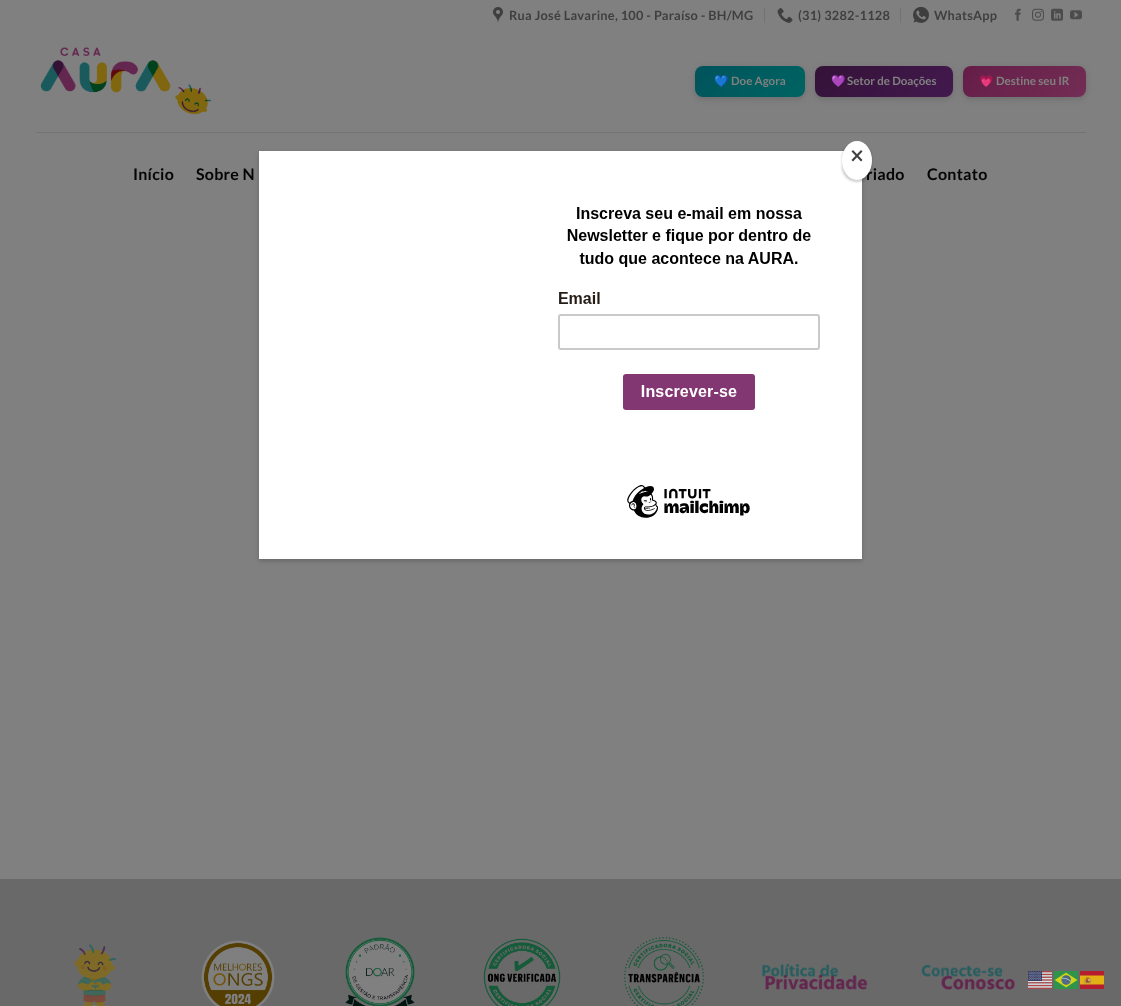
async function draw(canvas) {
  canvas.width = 1121
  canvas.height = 1006
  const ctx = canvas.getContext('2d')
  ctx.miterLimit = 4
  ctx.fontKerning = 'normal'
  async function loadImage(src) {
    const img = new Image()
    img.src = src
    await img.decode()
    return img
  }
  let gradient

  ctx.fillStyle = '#808080'
  ctx.fillRect(0, 0, 1121, 1006)
  ctx.drawImage(await loadImage('image0.png'), 493, 7, 10, 16)
  ctx.letterSpacing = '0.25px'
  ctx.font = 'bold 12.75px Lato'
  ctx.fillStyle = '#3f3f3f'
  ctx.fillText('Rua José Lavarine, 100 - Paraíso - BH/MG', 509, 20)
  ctx.fillStyle = '#737373'
  ctx.fillRect(764, 8, 1, 15)
  ctx.drawImage(await loadImage('image1.png'), 777, 8, 16, 15)
  ctx.fillStyle = '#3f3f3f'
  ctx.fillText('(31) 3282-1128', 798, 20)
  ctx.fillStyle = '#737373'
  ctx.fillRect(900, 8, 1, 15)
  ctx.drawImage(await loadImage('image2.png'), 913, 6, 16, 17)
  ctx.fillStyle = '#3f3f3f'
  ctx.fillText('WhatsApp', 934, 20)
  ctx.drawImage(await loadImage('image3.png'), 1015, 8, 6, 13)
  ctx.drawImage(await loadImage('image4.png'), 1032, 8, 12, 13)
  ctx.drawImage(await loadImage('image5.png'), 1051, 8, 12, 13)
  ctx.drawImage(await loadImage('image6.png'), 1070, 10, 12, 10)
  ctx.drawImage(await loadImage('image7.png'), 40, 47, 171, 68)
  ctx.fillStyle = '#00000026'
  ctx.filter = 'blur(3px)'
  ctx.beginPath()
  ctx.roundRect(695, 68, 110, 31, 8)
  ctx.fill()
  ctx.filter = 'none'
  gradient = ctx.createLinearGradient(715, 46, 785, 117)
  gradient.addColorStop(0, '#00535b')
  gradient.addColorStop(1, '#006462')
  ctx.fillStyle = gradient
  ctx.beginPath()
  ctx.roundRect(695, 66, 110, 31, 8)
  ctx.fill()
  ctx.letterSpacing = '0px'
  ctx.font = 'bold 11.5px Noto Color Emoji'
  ctx.fillStyle = '#808080'
  ctx.fillText('💙', 714, 85)
  ctx.font = 'bold 11.5px Lato'
  ctx.fillText('Doe Agora', 731, 85)
  ctx.fillStyle = '#00000026'
  ctx.filter = 'blur(3px)'
  ctx.beginPath()
  ctx.roundRect(815, 68, 138, 31, 8)
  ctx.fill()
  ctx.filter = 'none'
  gradient = ctx.createLinearGradient(842, 39, 926, 124)
  gradient.addColorStop(0, '#331237')
  gradient.addColorStop(1, '#43194e')
  ctx.fillStyle = gradient
  ctx.beginPath()
  ctx.roundRect(815, 66, 138, 31, 8)
  ctx.fill()
  ctx.font = 'bold 11.5px Noto Color Emoji'
  ctx.fillStyle = '#808080'
  ctx.fillText('💜', 831, 85)
  ctx.font = 'bold 11.5px Lato'
  ctx.fillText('Setor de Doações', 847, 85)
  ctx.fillStyle = '#00000026'
  ctx.filter = 'blur(3px)'
  ctx.beginPath()
  ctx.roundRect(963, 68, 123, 31, 8)
  ctx.fill()
  ctx.filter = 'none'
  gradient = ctx.createLinearGradient(986, 43, 1063, 120)
  gradient.addColorStop(0, '#651d47')
  gradient.addColorStop(1, '#732e55')
  ctx.fillStyle = gradient
  ctx.beginPath()
  ctx.roundRect(963, 66, 123, 31, 8)
  ctx.fill()
  ctx.font = 'bold 11.5px Noto Color Emoji'
  ctx.fillStyle = '#808080'
  ctx.fillText('💗', 979, 85)
  ctx.font = 'bold 11.5px Lato'
  ctx.fillText('Destine seu IR', 996, 85)
  ctx.fillStyle = '#737373'
  ctx.fillRect(36, 132, 1050, 1)
  ctx.letterSpacing = '0.25px'
  ctx.font = 'bold 16px Lato'
  ctx.fillStyle = '#050505'
  ctx.fillText('Início', 133, 180)
  ctx.fillText('Sobre N', 196, 180)
  ctx.fillText('riado', 866, 180)
  ctx.fillText('Contato', 927, 180)
  ctx.fillStyle = '#696969'
  ctx.fillRect(0, 879, 1121, 127)
  ctx.drawImage(await loadImage('image8.png'), 74, 944, 42, 62)
  ctx.drawImage(await loadImage('image9.png'), 201, 940, 74, 66)
  ctx.drawImage(await loadImage('image10.png'), 345, 937, 70, 69)
  ctx.drawImage(await loadImage('image11.png'), 483, 938, 78, 68)
  ctx.drawImage(await loadImage('image12.png'), 624, 937, 80, 69)
  ctx.drawImage(await loadImage('image13.png'), 762, 963, 106, 27)
  ctx.drawImage(await loadImage('image14.png'), 921, 965, 94, 25)
  ctx.fillStyle = '#00000033'
  ctx.filter = 'blur(2px)'
  ctx.beginPath()
  ctx.rect(259, 153, 603, 408)
  ctx.fill()
  ctx.filter = 'none'
  ctx.drawImage(await loadImage('image15.png'), 259, 151, 603, 408)
  ctx.filter = 'blur(1px)'
  ctx.beginPath()
  ctx.roundRect(842, 143, 30, 39, 15)
  ctx.fill()
  ctx.filter = 'none'
  ctx.fillStyle = '#fff'
  ctx.beginPath()
  ctx.ellipse(857, 160.5, 15, 19.5, 0, 0, 2 * Math.PI)
  ctx.fill()
  ctx.fillStyle = '#414141'
  ctx.beginPath()
  ctx.moveTo(861, 150)
  ctx.lineTo(862.5, 151.5)
  ctx.lineTo(853, 161.5)
  ctx.lineTo(851.5, 160)
  ctx.closePath()
  ctx.fill()
  ctx.beginPath()
  ctx.moveTo(851.5, 151.5)
  ctx.lineTo(853, 150)
  ctx.lineTo(862.5, 160)
  ctx.lineTo(861, 161.5)
  ctx.closePath()
  ctx.fill()
  ctx.drawImage(await loadImage('image16.png'), 1028, 971, 24, 18)
  ctx.drawImage(await loadImage('image17.png'), 1054, 971, 24, 18)
  ctx.drawImage(await loadImage('image18.png'), 1080, 971, 24, 18)
}

draw(document.querySelector('canvas'))
